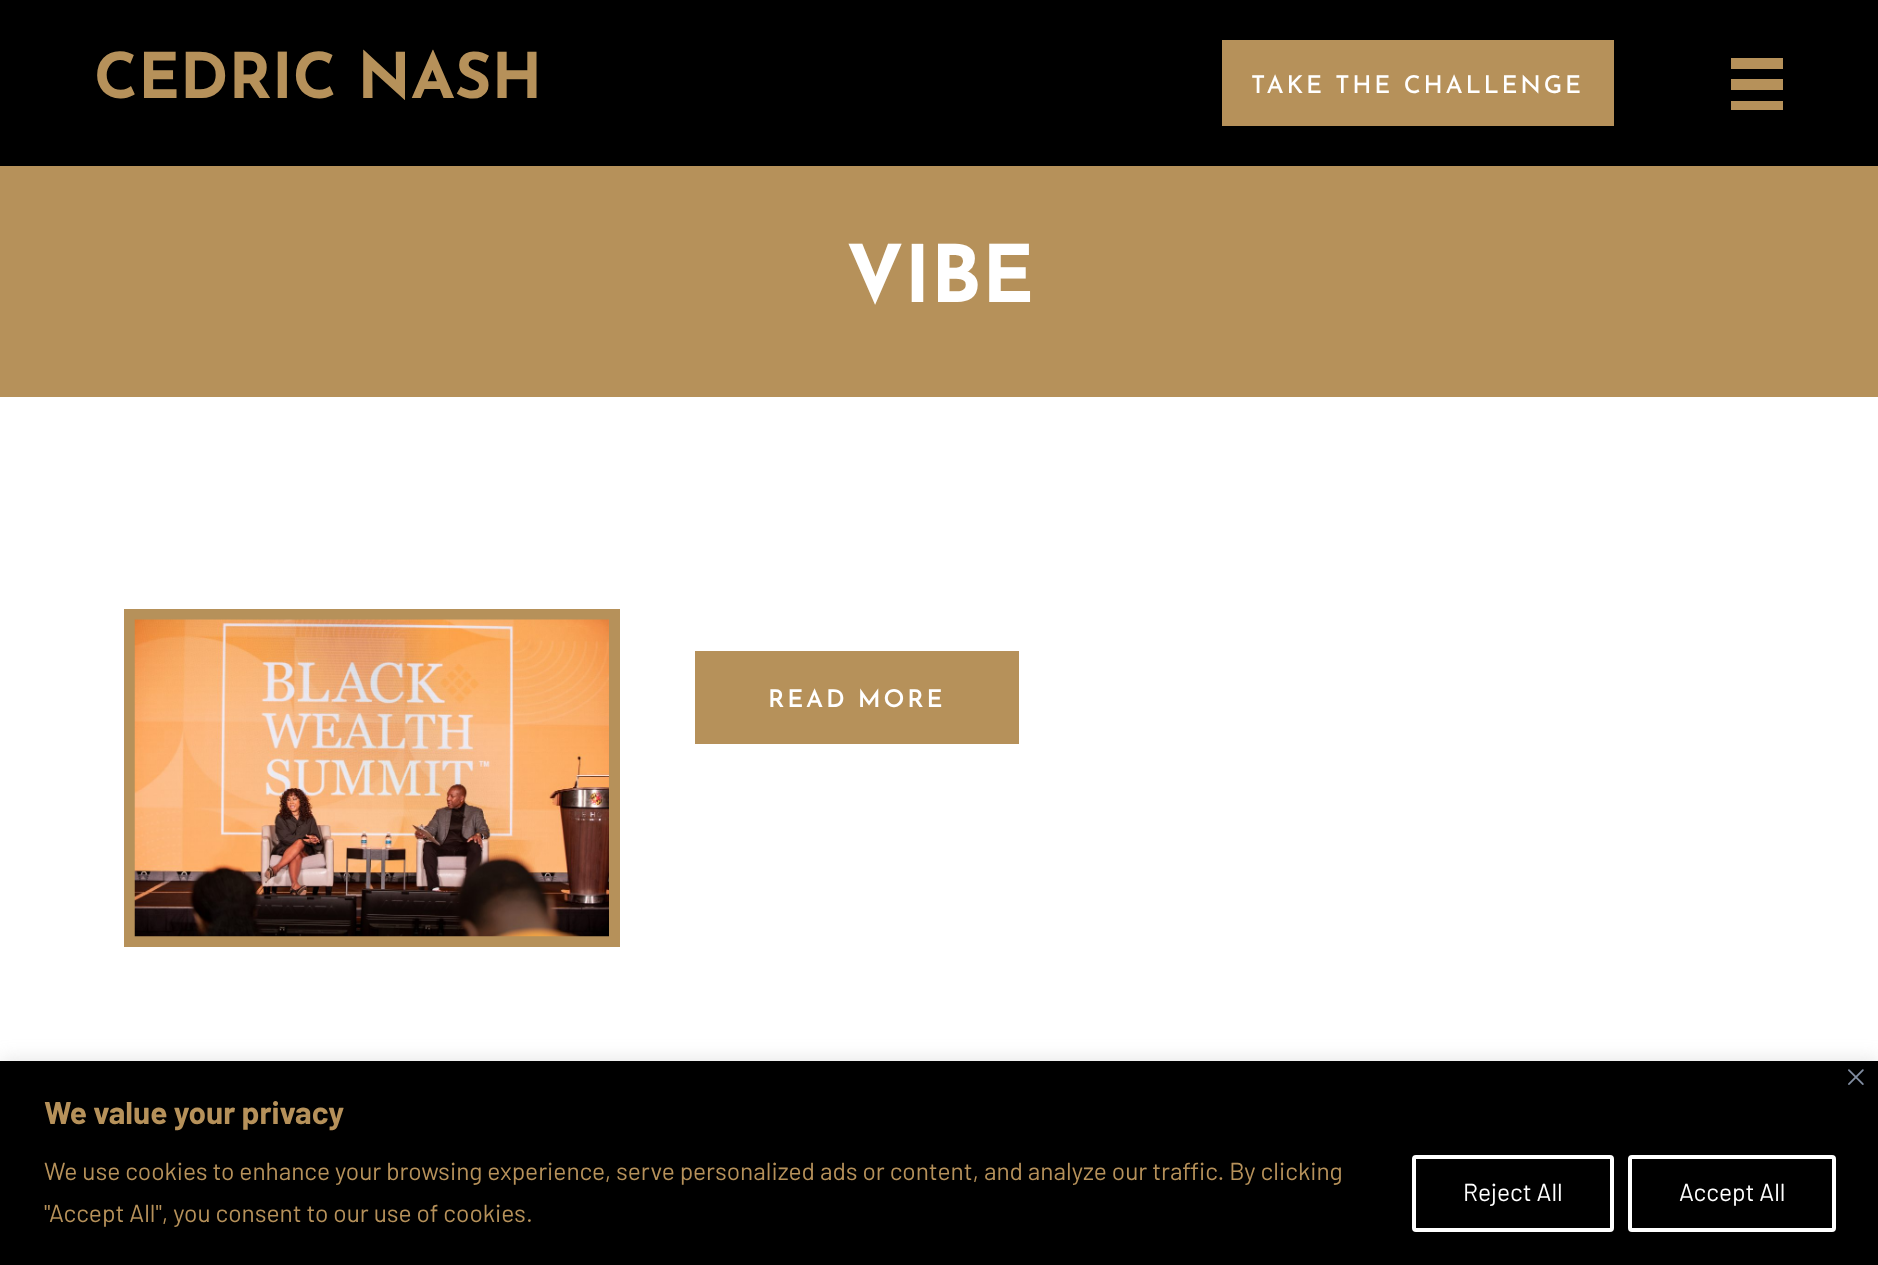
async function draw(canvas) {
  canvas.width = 1878
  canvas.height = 1265
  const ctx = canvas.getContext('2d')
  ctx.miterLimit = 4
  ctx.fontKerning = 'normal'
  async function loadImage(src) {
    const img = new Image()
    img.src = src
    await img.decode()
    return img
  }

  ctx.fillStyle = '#fff'
  ctx.fillRect(0, 0, 1878, 1265)
  ctx.fillStyle = '#000'
  ctx.fillRect(0, 0, 1878, 166)
  ctx.font = 'bold 63px Josefin Sans'
  ctx.fillStyle = '#b6915a'
  ctx.fillText('CEDRIC NASH', 94, 98)
  ctx.fillRect(1222, 40, 392, 86)
  ctx.letterSpacing = '2.75px'
  ctx.font = '500 24.5px Josefin Sans'
  ctx.fillStyle = '#fff'
  ctx.fillText('TAKE THE CHALLENGE', 1251, 93)
  ctx.fillStyle = '#b6915a'
  ctx.fillRect(1731, 58, 52, 11)
  ctx.fillRect(1731, 79, 52, 11)
  ctx.fillRect(1731, 101, 52, 9)
  ctx.fillRect(0, 166, 1878, 231)
  ctx.letterSpacing = '0px'
  ctx.font = 'bold 79px Josefin Sans'
  ctx.fillStyle = '#fff'
  ctx.fillText('VIBE', 846, 302)
  ctx.strokeStyle = '#b6915a'
  ctx.lineWidth = 11
  ctx.strokeRect(129.5, 614.5, 485, 327)
  ctx.drawImage(await loadImage('image0.png'), 134, 619, 475, 318)
  ctx.fillStyle = '#b6915a'
  ctx.fillRect(695, 651, 324, 93)
  ctx.letterSpacing = '2.75px'
  ctx.font = '600 24.5px Josefin Sans'
  ctx.fillStyle = '#fff'
  ctx.fillText('READ MORE', 768, 707)
  ctx.fillStyle = '#acabab4d'
  ctx.filter = 'blur(9px)'
  ctx.beginPath()
  ctx.rect(0, 1059, 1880, 205)
  ctx.fill()
  ctx.filter = 'none'
  ctx.fillStyle = '#000'
  ctx.fillRect(0, 1061, 1878, 204)
  ctx.drawImage(await loadImage('image1.png'), 1848, 1069, 16, 16)
  ctx.letterSpacing = '0px'
  ctx.font = 'bold 31.5px Barlow'
  ctx.fillStyle = '#b6915a'
  ctx.fillText('We value your privacy', 44, 1124)
  ctx.font = '24.5px Barlow'
  ctx.fillText('We use cookies to enhance your browsing experience, serve personalized ads or content, and analyze our traffic. By clicking', 44, 1180)
  ctx.fillText('"Accept All", you consent to our use of cookies.', 44, 1222)
  ctx.beginPath()
  ctx.roundRect(1414, 1157, 198, 73, 2)
  ctx.strokeStyle = '#fff'
  ctx.lineWidth = 4
  ctx.stroke()
  ctx.fillStyle = '#fff'
  ctx.fillText('Reject All', 1463, 1201)
  ctx.beginPath()
  ctx.roundRect(1630, 1157, 204, 73, 2)
  ctx.stroke()
  ctx.fillText('Accept All', 1679, 1201)
}

draw(document.querySelector('canvas'))
